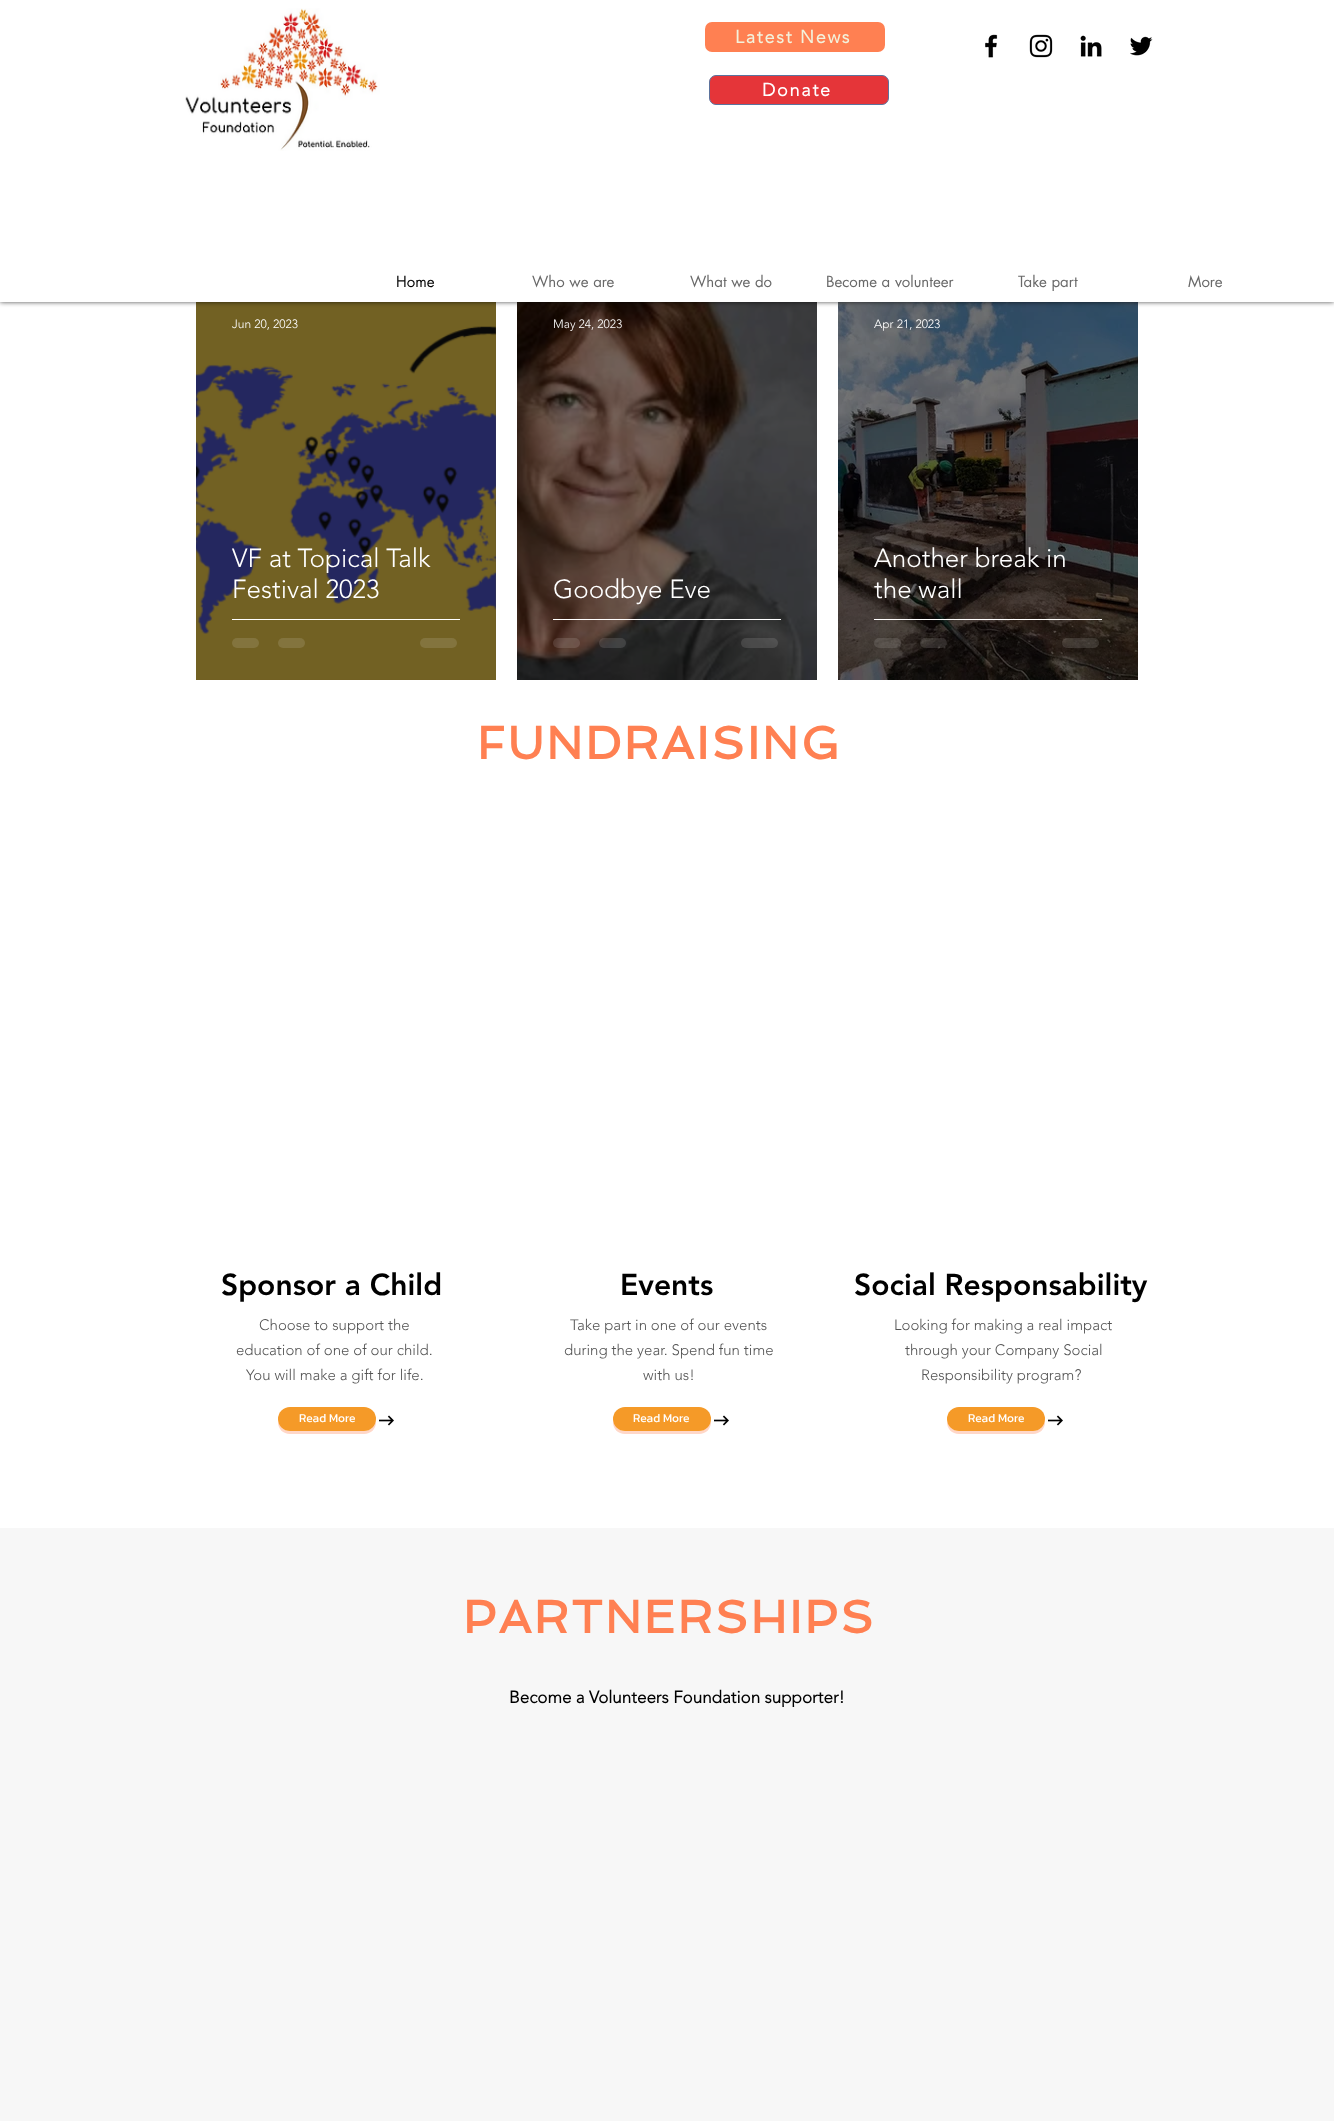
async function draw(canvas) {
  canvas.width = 1334
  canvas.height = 2121
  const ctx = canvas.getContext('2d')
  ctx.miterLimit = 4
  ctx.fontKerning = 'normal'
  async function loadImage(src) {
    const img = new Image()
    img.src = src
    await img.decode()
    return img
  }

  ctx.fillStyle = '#fff'
  ctx.fillRect(0, 0, 1334, 2121)
  ctx.drawImage(await loadImage('image5.png'), 196, 302, 300, 378)
  ctx.drawImage(await loadImage('image6.png'), 196, 302, 300, 378)
  ctx.drawImage(await loadImage('image7.png'), 517, 302, 300, 378)
  ctx.drawImage(await loadImage('image8.png'), 838, 302, 300, 378)
  ctx.fillStyle = '#000000b3'
  ctx.filter = 'blur(2.5px)'
  ctx.beginPath()
  ctx.rect(0, 0, 1334, 302)
  ctx.fill()
  ctx.filter = 'none'
  ctx.fillStyle = '#fff'
  ctx.fillRect(0, 0, 1334, 302)
  ctx.drawImage(await loadImage('image0.png'), 185, 8, 195, 143)
  ctx.fillStyle = '#ff8052'
  ctx.beginPath()
  ctx.roundRect(705, 22, 180, 30, 7)
  ctx.fill()
  ctx.letterSpacing = '1.75px'
  ctx.font = 'bold 18px "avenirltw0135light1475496"'
  ctx.fillStyle = '#f3f2dc'
  ctx.fillText('Latest News', 735, 43)
  ctx.drawImage(await loadImage('image1.png'), 985, 34, 13, 24)
  ctx.drawImage(await loadImage('image2.png'), 1029, 34, 24, 24)
  ctx.drawImage(await loadImage('image3.png'), 1080, 35, 22, 22)
  ctx.drawImage(await loadImage('image4.png'), 1130, 36, 23, 20)
  ctx.fillStyle = '#e53539'
  ctx.beginPath()
  ctx.roundRect(709.5, 75.5, 179, 29, 6.5)
  ctx.fill()
  ctx.strokeStyle = '#5c739d'
  ctx.stroke()
  ctx.fillStyle = '#fff'
  ctx.fillText('Donate', 762, 96)
  ctx.letterSpacing = '0px'
  ctx.font = '15px futura'
  ctx.fillStyle = '#000'
  ctx.fillText('Home', 396, 287)
  ctx.fillStyle = '#696969'
  ctx.fillText('Who we are', 532, 287)
  ctx.fillText('What we do', 690, 287)
  ctx.fillText('Become a volunteer', 826, 287)
  ctx.fillText('Take part', 1018, 287)
  ctx.fillText('More', 1188, 287)
  ctx.font = '300 12px "avenirltw0135light1475496"'
  ctx.fillStyle = '#fff'
  ctx.fillText('Jun 20, 2023', 232, 328)
  ctx.font = '300 26px "avenirltw0135light1475496"'
  ctx.fillText('VF at Topical Talk', 232, 567)
  ctx.fillText('Festival 2023', 232, 598)
  ctx.fillRect(232, 619, 228, 1)
  ctx.fillStyle = '#83743e'
  ctx.beginPath()
  ctx.roundRect(232, 638, 27, 10, 5)
  ctx.fill()
  ctx.beginPath()
  ctx.roundRect(278, 638, 27, 10, 5)
  ctx.fill()
  ctx.beginPath()
  ctx.roundRect(420, 638, 37, 10, 5)
  ctx.fill()
  ctx.font = '300 12px "avenirltw0135light1475496"'
  ctx.fillStyle = '#fff'
  ctx.fillText('May 24, 2023', 553, 328)
  ctx.font = '300 26px "avenirltw0135light1475496"'
  ctx.fillText('Goodbye Eve', 553, 598)
  ctx.fillRect(553, 619, 228, 1)
  ctx.fillStyle = '#ffffff1f'
  ctx.beginPath()
  ctx.roundRect(553, 638, 27, 10, 5)
  ctx.fill()
  ctx.beginPath()
  ctx.roundRect(599, 638, 27, 10, 5)
  ctx.fill()
  ctx.beginPath()
  ctx.roundRect(741, 638, 37, 10, 5)
  ctx.fill()
  ctx.font = '300 12px "avenirltw0135light1475496"'
  ctx.fillStyle = '#fff'
  ctx.fillText('Apr 21, 2023', 874, 328)
  ctx.font = '300 26px "avenirltw0135light1475496"'
  ctx.fillText('Another break in', 874, 567)
  ctx.fillText('the wall', 874, 598)
  ctx.fillRect(874, 619, 228, 1)
  ctx.fillStyle = '#ffffff1f'
  ctx.beginPath()
  ctx.roundRect(874, 638, 27, 10, 5)
  ctx.fill()
  ctx.beginPath()
  ctx.roundRect(920, 638, 27, 10, 5)
  ctx.fill()
  ctx.beginPath()
  ctx.roundRect(1062, 638, 37, 10, 5)
  ctx.fill()
  ctx.letterSpacing = '2.75px'
  ctx.font = 'bold 46px Spinnaker'
  ctx.fillStyle = '#ff8052'
  ctx.fillText('FUNDRAISING', 477, 759)
  ctx.letterSpacing = '0px'
  ctx.font = '900 30px "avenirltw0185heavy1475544"'
  ctx.fillStyle = '#000'
  ctx.fillText('Sponsor a Child', 221, 1295)
  ctx.font = '300 15px "avenirltw0135light1475496"'
  ctx.fillStyle = '#545454'
  ctx.fillText('Choose to support the', 259, 1330)
  ctx.fillText('education of one of our child.', 236, 1355)
  ctx.fillText('You will make a gift for life.', 246, 1380)
  ctx.fillStyle = '#ffd7c8'
  ctx.beginPath()
  ctx.moveTo(278, 1420)
  ctx.lineTo(278, 1422)
  ctx.bezierCurveTo(278, 1429, 283, 1434, 290, 1434)
  ctx.lineTo(364, 1434)
  ctx.bezierCurveTo(371, 1434, 376, 1429, 376, 1422)
  ctx.lineTo(376, 1420)
  ctx.bezierCurveTo(375, 1426, 370, 1431, 364, 1431)
  ctx.lineTo(290, 1431)
  ctx.bezierCurveTo(284, 1431, 279, 1426, 278, 1420)
  ctx.closePath()
  ctx.fill()
  ctx.fillStyle = '#f59a28'
  ctx.beginPath()
  ctx.roundRect(278, 1407, 98, 24, 12)
  ctx.fill()
  ctx.font = '12px Kanit'
  ctx.fillStyle = '#fff'
  ctx.fillText('Read More', 299, 1422)
  ctx.drawImage(await loadImage('image9.png'), 379, 1415, 15, 11)
  ctx.font = '900 30px "avenirltw0185heavy1475544"'
  ctx.fillStyle = '#000'
  ctx.fillText('Events', 620, 1295)
  ctx.font = '300 15px "avenirltw0135light1475496"'
  ctx.fillStyle = '#545454'
  ctx.fillText('Take part in one of our events', 570, 1330)
  ctx.fillText('during the year. Spend fun time', 564, 1355)
  ctx.fillText('with us!', 643, 1380)
  ctx.fillStyle = '#ffd7c8'
  ctx.beginPath()
  ctx.moveTo(613, 1420)
  ctx.lineTo(613, 1422)
  ctx.bezierCurveTo(613, 1429, 618, 1434, 625, 1434)
  ctx.lineTo(699, 1434)
  ctx.bezierCurveTo(706, 1434, 711, 1429, 711, 1422)
  ctx.lineTo(711, 1420)
  ctx.bezierCurveTo(710, 1426, 705, 1431, 699, 1431)
  ctx.lineTo(625, 1431)
  ctx.bezierCurveTo(619, 1431, 614, 1426, 613, 1420)
  ctx.closePath()
  ctx.fill()
  ctx.fillStyle = '#f59a28'
  ctx.beginPath()
  ctx.roundRect(613, 1407, 98, 24, 12)
  ctx.fill()
  ctx.font = '12px Kanit'
  ctx.fillStyle = '#fff'
  ctx.fillText('Read More', 633, 1422)
  ctx.drawImage(await loadImage('image9.png'), 714, 1415, 15, 11)
  ctx.font = '900 30px "avenirltw0185heavy1475544"'
  ctx.fillStyle = '#000'
  ctx.fillText('Social Responsability', 854, 1295)
  ctx.font = '300 15px "avenirltw0135light1475496"'
  ctx.fillStyle = '#545454'
  ctx.fillText('Looking for making a real impact', 894, 1330)
  ctx.fillText('through your Company Social', 905, 1355)
  ctx.fillText('Responsibility program?', 921, 1380)
  ctx.fillStyle = '#ffd7c8'
  ctx.beginPath()
  ctx.moveTo(947, 1420)
  ctx.lineTo(947, 1422)
  ctx.bezierCurveTo(947, 1429, 952, 1434, 959, 1434)
  ctx.lineTo(1033, 1434)
  ctx.bezierCurveTo(1040, 1434, 1045, 1429, 1045, 1422)
  ctx.lineTo(1045, 1420)
  ctx.bezierCurveTo(1044, 1426, 1039, 1431, 1033, 1431)
  ctx.lineTo(959, 1431)
  ctx.bezierCurveTo(953, 1431, 948, 1426, 947, 1420)
  ctx.closePath()
  ctx.fill()
  ctx.fillStyle = '#f59a28'
  ctx.beginPath()
  ctx.roundRect(947, 1407, 98, 24, 12)
  ctx.fill()
  ctx.font = '12px Kanit'
  ctx.fillStyle = '#fff'
  ctx.fillText('Read More', 968, 1422)
  ctx.drawImage(await loadImage('image9.png'), 1048, 1415, 15, 11)
  ctx.fillStyle = '#f7f7f7'
  ctx.fillRect(0, 1528, 1334, 593)
  ctx.letterSpacing = '2.75px'
  ctx.font = 'bold 46px Spinnaker'
  ctx.fillStyle = '#ff8052'
  ctx.fillText('PARTNERSHIPS', 463, 1633)
  ctx.letterSpacing = '0px'
  ctx.font = 'bold 17px "avenirltw0135light1475496"'
  ctx.fillStyle = '#000'
  ctx.fillText('Become a Volunteers Foundation supporter!', 509, 1703)
}

draw(document.querySelector('canvas'))
